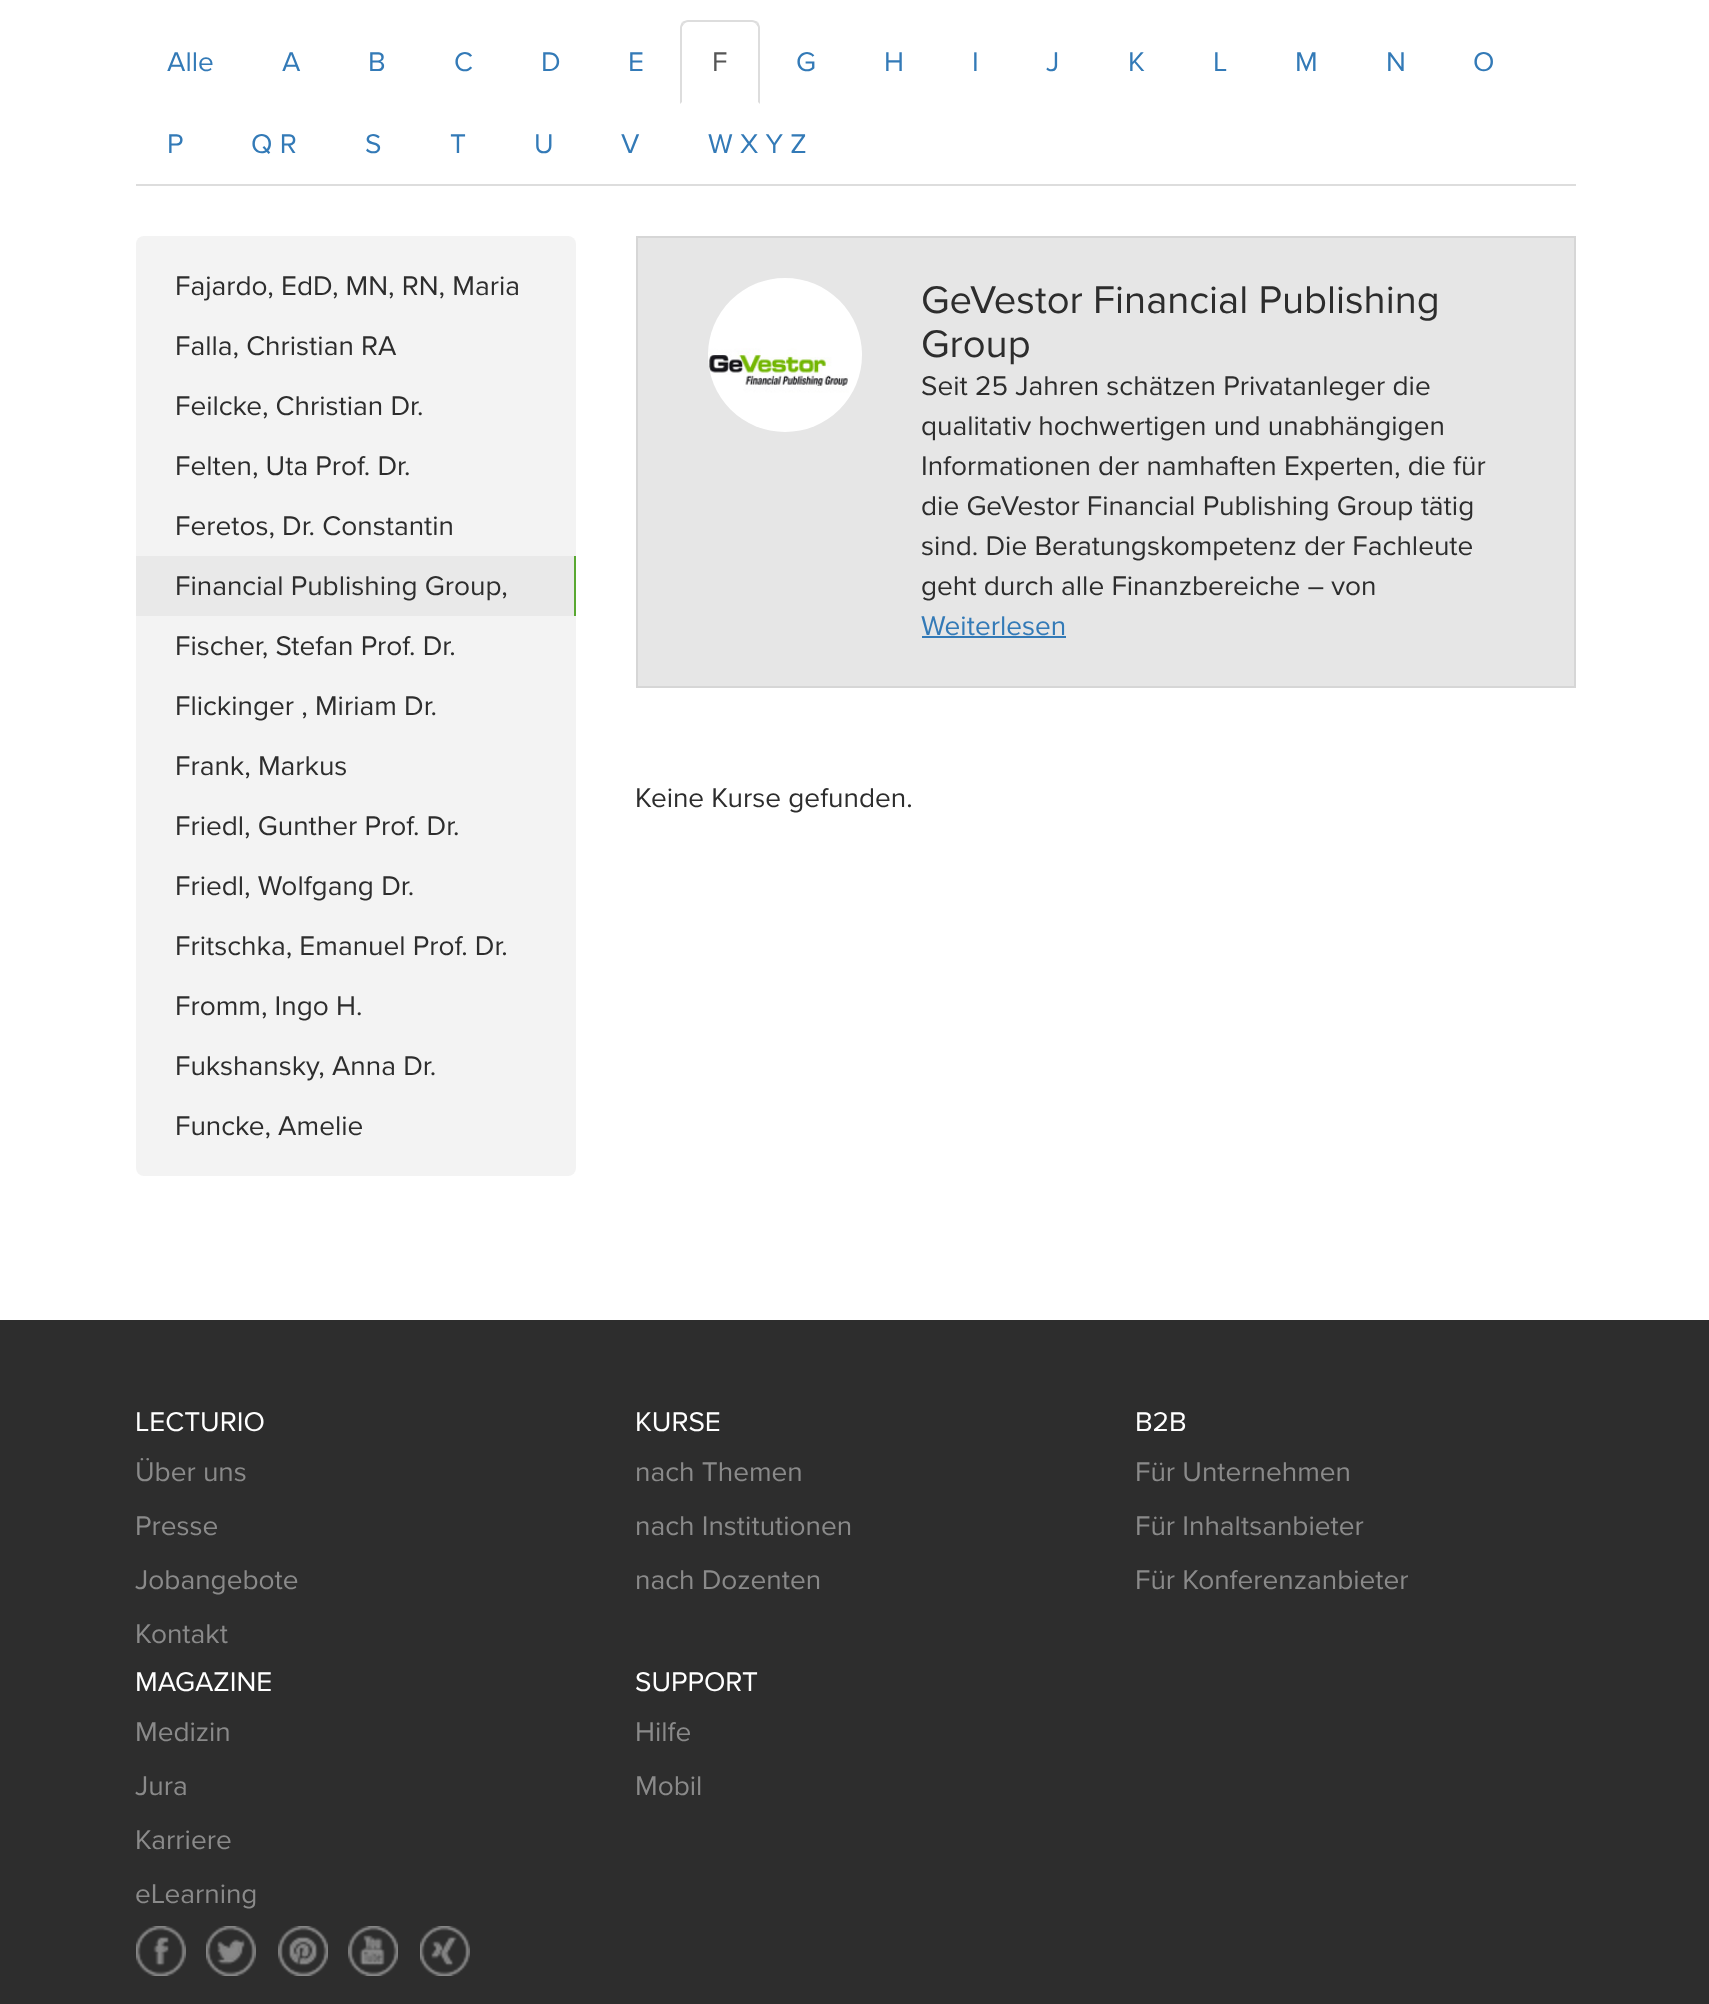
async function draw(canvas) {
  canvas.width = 1709
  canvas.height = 2004
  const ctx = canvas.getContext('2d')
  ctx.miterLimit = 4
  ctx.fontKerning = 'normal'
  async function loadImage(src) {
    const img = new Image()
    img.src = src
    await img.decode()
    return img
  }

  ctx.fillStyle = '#fff'
  ctx.fillRect(0, 0, 1709, 2004)
  ctx.fillStyle = '#ddd'
  ctx.fillRect(136, 184, 1440, 2)
  ctx.font = '28px Proxima Nova'
  ctx.fillStyle = '#337ab7'
  ctx.fillText('Alle', 167, 71)
  ctx.fillText('A', 282, 71)
  ctx.fillText('B', 368, 71)
  ctx.fillText('C', 454, 71)
  ctx.fillText('D', 541, 71)
  ctx.fillText('E', 628, 71)
  ctx.fillStyle = '#ddd'
  ctx.beginPath()
  ctx.moveTo(688, 20)
  ctx.bezierCurveTo(686, 20, 684, 21, 682, 22)
  ctx.lineTo(684, 24)
  ctx.bezierCurveTo(685, 23, 686, 22, 688, 22)
  ctx.lineTo(752, 22)
  ctx.bezierCurveTo(754, 22, 755, 23, 756, 24)
  ctx.lineTo(758, 22)
  ctx.bezierCurveTo(756, 21, 754, 20, 752, 20)
  ctx.closePath()
  ctx.fill()
  ctx.beginPath()
  ctx.moveTo(760, 104)
  ctx.lineTo(760, 28)
  ctx.bezierCurveTo(760, 26, 759, 24, 758, 22)
  ctx.lineTo(756, 24)
  ctx.lineTo(758, 27)
  ctx.lineTo(758, 102)
  ctx.closePath()
  ctx.fill()
  ctx.beginPath()
  ctx.moveTo(680, 104)
  ctx.lineTo(682, 102)
  ctx.lineTo(682, 27)
  ctx.lineTo(684, 24)
  ctx.lineTo(682, 22)
  ctx.bezierCurveTo(681, 24, 680, 26, 680, 28)
  ctx.closePath()
  ctx.fill()
  ctx.fillStyle = '#555'
  ctx.fillText('F', 712, 71)
  ctx.fillStyle = '#337ab7'
  ctx.fillText('G', 796, 71)
  ctx.fillText('H', 884, 71)
  ctx.fillText('I', 972, 71)
  ctx.fillText('J', 1046, 71)
  ctx.fillText('K', 1128, 71)
  ctx.fillText('L', 1213, 71)
  ctx.fillText('M', 1295, 71)
  ctx.fillText('N', 1386, 71)
  ctx.fillText('O', 1473, 71)
  ctx.fillText('P', 167, 153)
  ctx.fillText('Q R', 251, 153)
  ctx.fillText('S', 365, 153)
  ctx.fillText('T', 450, 153)
  ctx.fillText('U', 534, 153)
  ctx.fillText('V', 621, 153)
  ctx.fillText('W X Y Z', 708, 153)
  ctx.fillStyle = '#f3f3f3'
  ctx.beginPath()
  ctx.roundRect(136, 236, 440, 940, 8)
  ctx.fill()
  ctx.fillStyle = '#2d2d2d'
  ctx.fillText('Fajardo, EdD, MN, RN, Maria', 175, 295)
  ctx.fillText('Falla, Christian RA', 175, 355)
  ctx.fillText('Feilcke, Christian Dr.', 175, 415)
  ctx.fillText('Felten, Uta Prof. Dr.', 175, 475)
  ctx.fillText('Feretos, Dr. Constantin', 175, 535)
  ctx.fillStyle = '#e9e9e9'
  ctx.fillRect(136, 556, 438, 60)
  ctx.fillStyle = '#59a831'
  ctx.fillRect(574, 556, 2, 60)
  ctx.fillStyle = '#2d2d2d'
  ctx.fillText('Financial Publishing Group,', 175, 595)
  ctx.fillText('Fischer, Stefan Prof. Dr.', 175, 655)
  ctx.fillText('Flickinger , Miriam Dr.', 175, 715)
  ctx.fillText('Frank, Markus', 175, 775)
  ctx.fillText('Friedl, Gunther Prof. Dr.', 175, 835)
  ctx.fillText('Friedl, Wolfgang Dr.', 175, 895)
  ctx.fillText('Fritschka, Emanuel Prof. Dr.', 175, 955)
  ctx.fillText('Fromm, Ingo H.', 175, 1015)
  ctx.fillText('Fukshansky, Anna Dr.', 175, 1075)
  ctx.fillText('Funcke, Amelie', 175, 1135)
  ctx.fillStyle = '#e6e6e6'
  ctx.beginPath()
  ctx.rect(637, 237, 938, 450)
  ctx.fill()
  ctx.strokeStyle = '#d6d6d6'
  ctx.lineWidth = 2
  ctx.stroke()
  ctx.drawImage(await loadImage('image0.png'), 708, 278, 154, 154)
  ctx.font = '40px Proxima Nova'
  ctx.fillStyle = '#2d2d2d'
  ctx.fillText('GeVestor Financial Publishing', 921, 313)
  ctx.fillText('Group', 921, 357)
  ctx.font = '28px Proxima Nova'
  ctx.fillText('Seit 25 Jahren schätzen Privatanleger die', 921, 395)
  ctx.fillText('qualitativ hochwertigen und unabhängigen', 921, 435)
  ctx.fillText('Informationen der namhaften Experten, die für', 921, 475)
  ctx.fillText('die GeVestor Financial Publishing Group tätig', 921, 515)
  ctx.fillText('sind. Die Beratungskompetenz der Fachleute', 921, 555)
  ctx.fillText('geht durch alle Finanzbereiche – von', 921, 595)
  ctx.fillStyle = '#337ab7'
  ctx.fillText('Weiterlesen', 921, 635)
  ctx.fillRect(922, 636, 144, 2)
  ctx.fillStyle = '#2d2d2d'
  ctx.fillText('Keine Kurse gefunden.', 635, 807)
  ctx.fillRect(0, 1320, 1709, 684)
  ctx.fillStyle = '#fff'
  ctx.fillText('LECTURIO', 135, 1431)
  ctx.fillStyle = '#8a8a8a'
  ctx.fillText('Über uns', 135, 1481)
  ctx.fillText('Presse', 135, 1535)
  ctx.fillText('Jobangebote', 135, 1589)
  ctx.fillText('Kontakt', 135, 1643)
  ctx.fillStyle = '#fff'
  ctx.fillText('KURSE', 635, 1431)
  ctx.fillStyle = '#8a8a8a'
  ctx.fillText('nach Themen', 635, 1481)
  ctx.fillText('nach Institutionen', 635, 1535)
  ctx.fillText('nach Dozenten', 635, 1589)
  ctx.fillStyle = '#fff'
  ctx.fillText('B2B', 1135, 1431)
  ctx.fillStyle = '#8a8a8a'
  ctx.fillText('Für Unternehmen', 1135, 1481)
  ctx.fillText('Für Inhaltsanbieter', 1135, 1535)
  ctx.fillText('Für Konferenzanbieter', 1135, 1589)
  ctx.fillStyle = '#fff'
  ctx.fillText('MAGAZINE', 135, 1691)
  ctx.fillStyle = '#8a8a8a'
  ctx.fillText('Medizin', 135, 1741)
  ctx.fillText('Jura', 135, 1795)
  ctx.fillText('Karriere', 135, 1849)
  ctx.fillText('eLearning', 135, 1903)
  ctx.fillStyle = '#fff'
  ctx.fillText('SUPPORT', 635, 1691)
  ctx.fillStyle = '#8a8a8a'
  ctx.fillText('Hilfe', 635, 1741)
  ctx.fillText('Mobil', 635, 1795)
  ctx.drawImage(await loadImage('image1.png'), 136, 1926, 50, 50)
  ctx.drawImage(await loadImage('image2.png'), 206, 1926, 50, 50)
  ctx.drawImage(await loadImage('image3.png'), 278, 1926, 50, 50)
  ctx.drawImage(await loadImage('image4.png'), 348, 1926, 50, 50)
  ctx.drawImage(await loadImage('image5.png'), 420, 1926, 50, 50)
}

draw(document.querySelector('canvas'))
